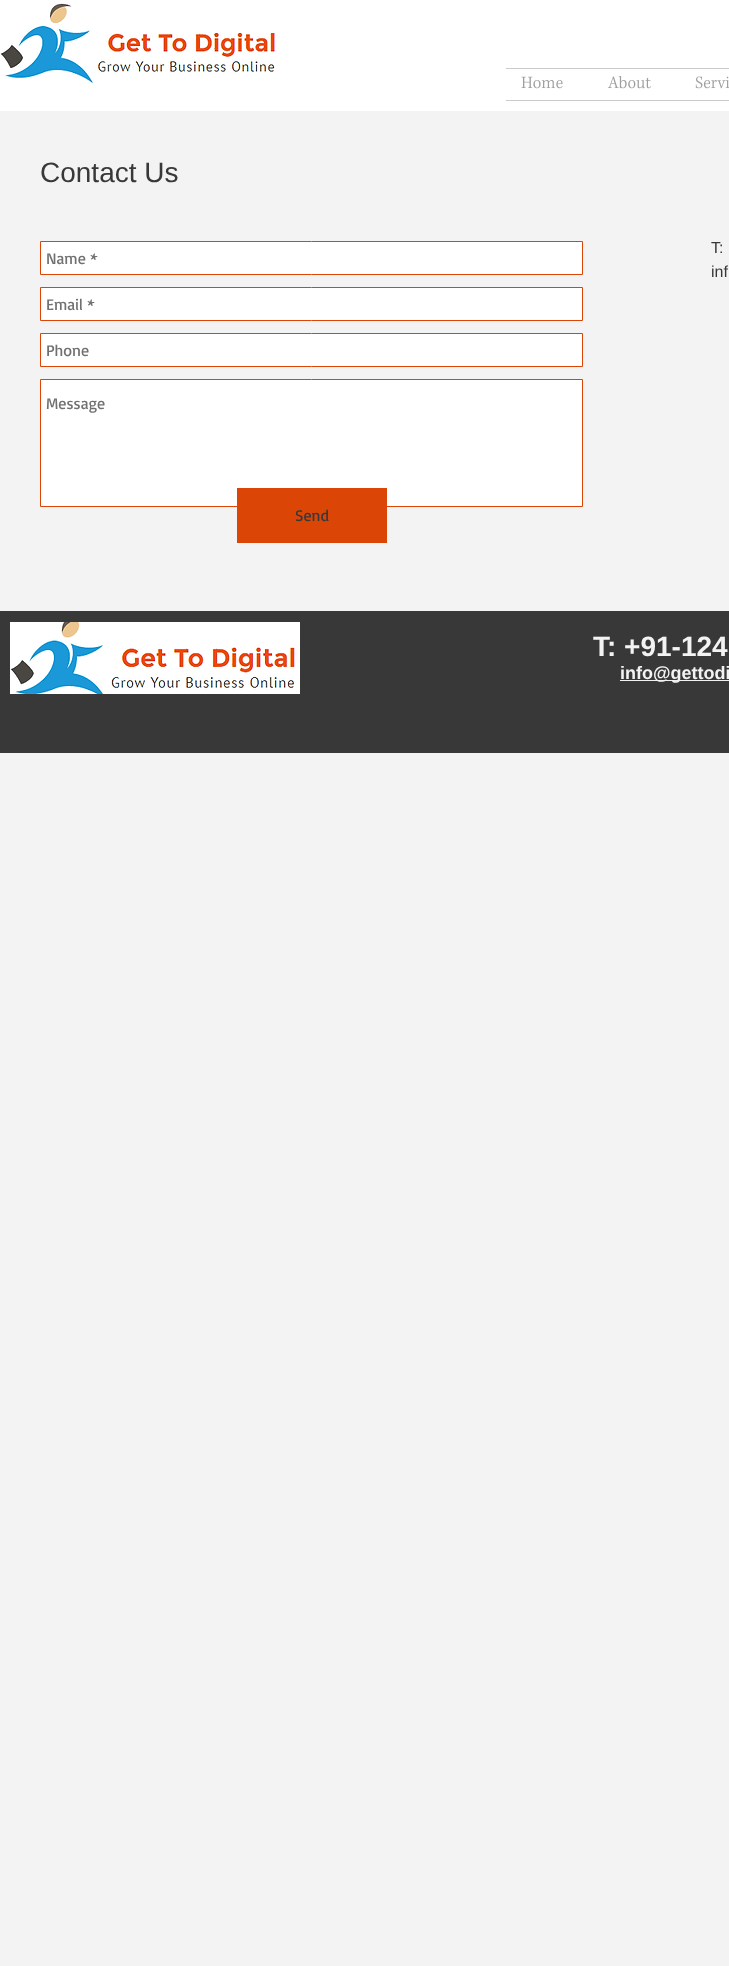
async function draw(canvas) {
  canvas.width = 729
  canvas.height = 1966
  const ctx = canvas.getContext('2d')
  ctx.miterLimit = 4
  ctx.fontKerning = 'normal'
  async function loadImage(src) {
    const img = new Image()
    img.src = src
    await img.decode()
    return img
  }

  ctx.fillStyle = '#f3f3f3'
  ctx.fillRect(0, 0, 729, 1966)
  ctx.fillStyle = '#fff'
  ctx.fillRect(0, 0, 729, 111)
  ctx.drawImage(await loadImage('image0.png'), 1, 3, 274, 80)
  ctx.fillStyle = '#cacaca'
  ctx.fillRect(506, 68, 223, 1)
  ctx.fillRect(506, 100, 223, 1)
  ctx.drawImage(await loadImage('image1.png'), 521, 76, 42, 13)
  ctx.drawImage(await loadImage('image2.png'), 607, 76, 44, 13)
  ctx.drawImage(await loadImage('image3.png'), 695, 76, 34, 13)
  ctx.font = '28px Liberation Sans'
  ctx.fillStyle = '#383838'
  ctx.fillText('Contact Us', 40, 182)
  ctx.fillStyle = '#fff'
  ctx.beginPath()
  ctx.rect(40.5, 241.5, 542, 33)
  ctx.fill()
  ctx.strokeStyle = '#db4607'
  ctx.stroke()
  ctx.font = '16px Basic'
  ctx.fillStyle = '#717070'
  ctx.fillText('Name *', 46, 264)
  ctx.fillStyle = '#fff'
  ctx.beginPath()
  ctx.rect(40.5, 287.5, 542, 33)
  ctx.fill()
  ctx.stroke()
  ctx.fillStyle = '#717070'
  ctx.fillText('Email *', 46, 310)
  ctx.fillStyle = '#fff'
  ctx.beginPath()
  ctx.rect(40.5, 333.5, 542, 33)
  ctx.fill()
  ctx.stroke()
  ctx.fillStyle = '#717070'
  ctx.fillText('Phone', 46, 356)
  ctx.fillStyle = '#fff'
  ctx.beginPath()
  ctx.rect(40.5, 379.5, 542, 127)
  ctx.fill()
  ctx.stroke()
  ctx.fillStyle = '#717070'
  ctx.fillText('Message', 46, 409)
  ctx.fillStyle = '#db4607'
  ctx.fillRect(237, 488, 150, 55)
  ctx.fillStyle = '#383838'
  ctx.fillText('Send', 295, 521)
  ctx.font = '16px Liberation Sans'
  ctx.fillText('T:', 711, 253)
  ctx.fillText('inf', 711, 277)
  ctx.fillRect(0, 611, 729, 142)
  ctx.drawImage(await loadImage('image4.png'), 10, 622, 290, 72)
  ctx.font = 'bold 28px Liberation Sans'
  ctx.fillStyle = '#f3f3f3'
  ctx.fillText('T: +91-124', 593, 656)
  ctx.fillRect(620, 680, 109, 1)
  ctx.font = 'bold 18px Liberation Sans'
  ctx.fillText('info@gettodi', 620, 679)
}

draw(document.querySelector('canvas'))
